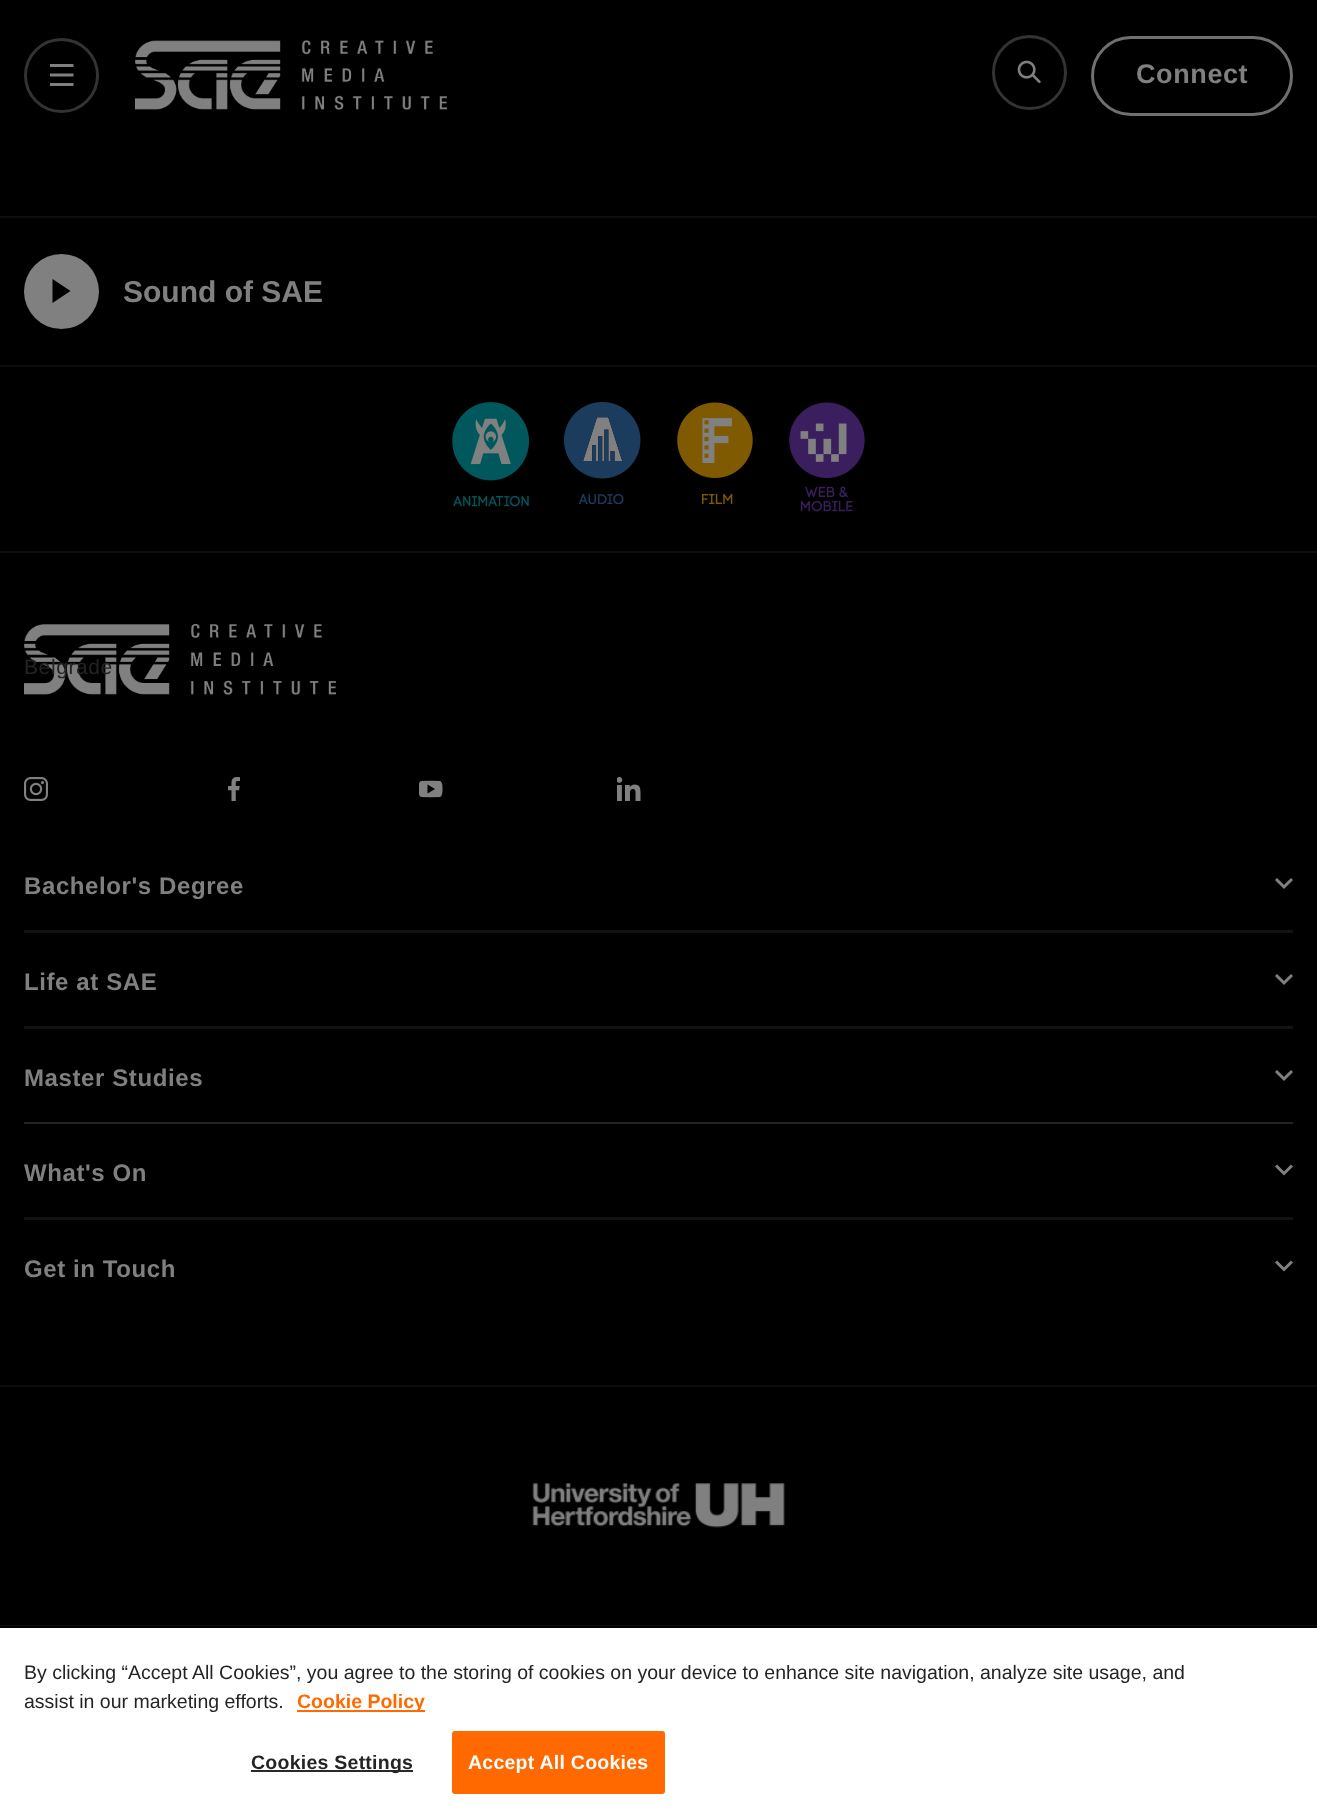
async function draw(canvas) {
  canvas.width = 1317
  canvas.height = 1817
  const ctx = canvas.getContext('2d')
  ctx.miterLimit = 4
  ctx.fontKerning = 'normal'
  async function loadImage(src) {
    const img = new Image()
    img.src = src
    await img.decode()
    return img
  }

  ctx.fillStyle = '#000'
  ctx.fillRect(0, 0, 1317, 1817)
  ctx.beginPath()
  ctx.arc(61.5, 75.5, 36, 0, 2 * Math.PI)
  ctx.strokeStyle = '#333'
  ctx.lineWidth = 3
  ctx.stroke()
  ctx.save()
  ctx.beginPath()
  ctx.rect(50, 63, 24, 24)
  ctx.clip()
  ctx.beginPath()
  ctx.moveTo(49.5, 65.5)
  ctx.lineTo(73.5, 65.5)
  ctx.moveTo(49.5, 75)
  ctx.lineTo(73.5, 75)
  ctx.moveTo(49.5, 84.5)
  ctx.lineTo(73.5, 84.5)
  ctx.strokeStyle = '#808080'
  ctx.lineWidth = 3.2
  ctx.stroke()
  ctx.restore()
  ctx.drawImage(await loadImage('image0.png'), 135, 40, 312, 70)
  ctx.beginPath()
  ctx.arc(1029.5, 72.5, 36, 0, 2 * Math.PI)
  ctx.stroke()
  ctx.drawImage(await loadImage('image1.png'), 1017, 60, 24, 23)
  ctx.beginPath()
  ctx.roundRect(1092.5, 37.5, 199, 77, 38.5)
  ctx.strokeStyle = '#707070'
  ctx.stroke()
  ctx.letterSpacing = '0.6px'
  ctx.font = 'bold 27px Liberation Sans'
  ctx.fillStyle = '#808080'
  ctx.fillText('Connect', 1136, 83)
  ctx.fillStyle = '#0d0d0d'
  ctx.fillRect(0, 216, 1317, 2)
  ctx.fillRect(0, 365, 1317, 2)
  ctx.fillStyle = '#808080'
  ctx.beginPath()
  ctx.arc(61.5, 291.5, 37.5, 0, 2 * Math.PI)
  ctx.fill()
  ctx.fillStyle = '#000'
  ctx.beginPath()
  ctx.moveTo(70.5, 291)
  ctx.lineTo(52.5, 303)
  ctx.lineTo(52.5, 279)
  ctx.closePath()
  ctx.fill()
  ctx.letterSpacing = '0px'
  ctx.font = 'bold 30px Liberation Sans'
  ctx.fillStyle = '#808080'
  ctx.fillText('Sound of SAE', 123, 302)
  ctx.drawImage(await loadImage('image2.png'), 452, 402, 78, 105)
  ctx.drawImage(await loadImage('image3.png'), 564, 402, 77, 102)
  ctx.drawImage(await loadImage('image4.png'), 677, 402, 76, 102)
  ctx.drawImage(await loadImage('image5.png'), 789, 402, 76, 110)
  ctx.fillStyle = '#0d0d0d'
  ctx.fillRect(0, 551, 1317, 2)
  ctx.drawImage(await loadImage('image6.png'), 24, 624, 312, 71)
  ctx.drawImage(await loadImage('image7.png'), 24, 777, 24, 24)
  ctx.drawImage(await loadImage('image8.png'), 228, 777, 12, 24)
  ctx.drawImage(await loadImage('image9.png'), 419, 780, 24, 18)
  ctx.drawImage(await loadImage('image10.png'), 617, 777, 24, 24)
  ctx.letterSpacing = '0.6px'
  ctx.font = 'bold 24px Liberation Sans'
  ctx.fillStyle = '#808080'
  ctx.fillText('Bachelor\'s Degree', 24, 894)
  ctx.beginPath()
  ctx.moveTo(1276, 879)
  ctx.lineTo(1284, 887)
  ctx.lineTo(1292, 879)
  ctx.strokeStyle = '#808080'
  ctx.stroke()
  ctx.fillStyle = '#121212'
  ctx.fillRect(24, 930, 1269, 3)
  ctx.fillStyle = '#808080'
  ctx.fillText('Life at SAE', 24, 990)
  ctx.beginPath()
  ctx.moveTo(1276, 975)
  ctx.lineTo(1284, 983)
  ctx.lineTo(1292, 975)
  ctx.stroke()
  ctx.fillStyle = '#121212'
  ctx.fillRect(24, 1026, 1269, 3)
  ctx.fillStyle = '#808080'
  ctx.fillText('Master Studies', 24, 1086)
  ctx.beginPath()
  ctx.moveTo(1276, 1071)
  ctx.lineTo(1284, 1079)
  ctx.lineTo(1292, 1071)
  ctx.stroke()
  ctx.fillStyle = '#232323'
  ctx.fillRect(24, 1122, 1269, 2)
  ctx.fillStyle = '#808080'
  ctx.fillText('What\'s On', 24, 1181)
  ctx.beginPath()
  ctx.moveTo(1276, 1165.5)
  ctx.lineTo(1284, 1173.5)
  ctx.lineTo(1292, 1165.5)
  ctx.stroke()
  ctx.fillStyle = '#121212'
  ctx.fillRect(24, 1217, 1269, 3)
  ctx.fillStyle = '#808080'
  ctx.fillText('Get in Touch', 24, 1277)
  ctx.beginPath()
  ctx.moveTo(1276, 1261.5)
  ctx.lineTo(1284, 1269.5)
  ctx.lineTo(1292, 1261.5)
  ctx.stroke()
  ctx.fillStyle = '#0d0d0d'
  ctx.fillRect(0, 1385, 1317, 2)
  ctx.drawImage(await loadImage('image11.png'), 532, 1483, 253, 45)
  ctx.fillRect(0, 1625, 1317, 1)
  ctx.font = '21px Liberation Sans'
  ctx.fillStyle = '#242424'
  ctx.fillText('Belgrade', 24, 674)
  ctx.fillStyle = '#fff'
  ctx.fillRect(0, 1628, 1317, 189)
  ctx.letterSpacing = '0px'
  ctx.font = '19.5px Liberation Sans'
  ctx.fillStyle = '#242424'
  ctx.fillText('By clicking “Accept All Cookies”, you agree to the storing of cookies on your device to enhance site navigation, analyze site usage, and', 24, 1679)
  ctx.fillText('assist in our marketing efforts.', 24, 1708)
  ctx.fillStyle = '#ff6900'
  ctx.fillRect(297, 1710, 128, 2)
  ctx.font = 'bold 19.5px Liberation Sans'
  ctx.fillText('Cookie Policy', 297, 1708)
  ctx.fillStyle = '#292929'
  ctx.fillRect(251, 1770, 162, 2)
  ctx.letterSpacing = '0.25px'
  ctx.fillStyle = '#242424'
  ctx.fillText('Cookies Settings', 251, 1769)
  ctx.fillStyle = '#ff6900'
  ctx.beginPath()
  ctx.roundRect(453, 1732, 211, 61, 2)
  ctx.fill()
  ctx.strokeStyle = '#ff6900'
  ctx.lineWidth = 2
  ctx.stroke()
  ctx.fillStyle = '#fff'
  ctx.fillText('Accept All Cookies', 468, 1769)
}

draw(document.querySelector('canvas'))
